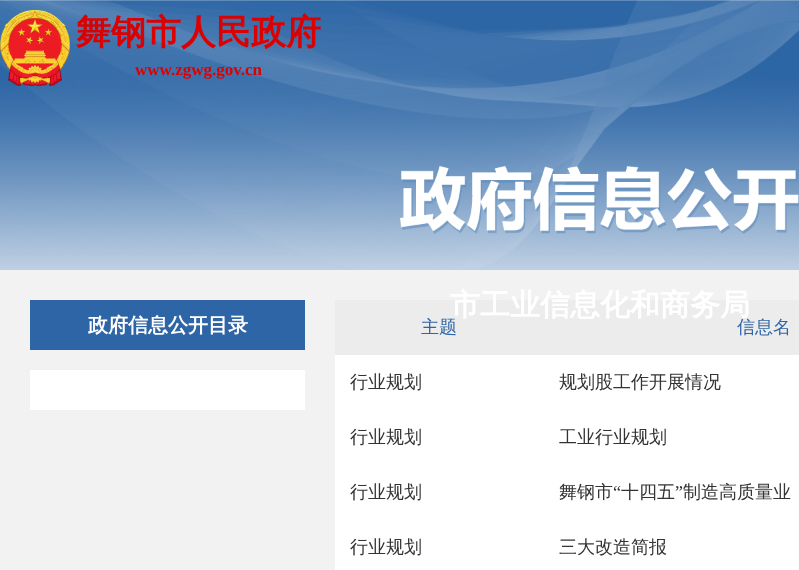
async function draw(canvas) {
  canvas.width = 799
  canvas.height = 570
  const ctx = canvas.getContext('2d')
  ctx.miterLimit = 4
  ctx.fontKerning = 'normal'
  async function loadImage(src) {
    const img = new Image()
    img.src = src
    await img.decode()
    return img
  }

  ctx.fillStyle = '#fff'
  ctx.fillRect(0, 0, 799, 570)
  ctx.drawImage(await loadImage('image0.png'), 0, 0, 799, 270)
  ctx.drawImage(await loadImage('image1.png'), 0, 10, 70, 76)
  ctx.font = 'bold 35px WenQuanYi Zen Hei'
  ctx.fillStyle = '#d00'
  ctx.fillText('舞钢市人民政府', 76, 44)
  ctx.font = 'bold 17px Liberation Serif'
  ctx.fillText('www.zgwg.gov.cn', 135, 75)
  ctx.drawImage(await loadImage('image2.png'), 400, 166, 399, 68)
  ctx.fillStyle = '#f2f2f2'
  ctx.fillRect(0, 270, 799, 300)
  ctx.fillStyle = '#ececec'
  ctx.fillRect(335, 300, 464, 55)
  ctx.font = 'bold 30px WenQuanYi Zen Hei'
  ctx.fillStyle = '#fff'
  ctx.fillText('市工业信息化和商务局', 450, 315)
  ctx.fillStyle = '#2e65a6'
  ctx.fillRect(30, 300, 275, 50)
  ctx.font = 'bold 20px WenQuanYi Zen Hei'
  ctx.fillStyle = '#fff'
  ctx.fillText('政府信息公开目录', 88, 332)
  ctx.fillRect(30, 370, 275, 40)
  ctx.fillRect(335, 355, 464, 215)
  ctx.font = '500 18px WenQuanYi Zen Hei'
  ctx.fillStyle = '#2e65a6'
  ctx.fillText('主题', 421, 333)
  ctx.fillText('信息名', 737, 333)
  ctx.fillStyle = '#333'
  ctx.fillText('行业规划', 350, 388)
  ctx.fillText('规划股工作开展情况', 559, 388)
  ctx.fillText('行业规划', 350, 443)
  ctx.fillText('工业行业规划', 559, 443)
  ctx.fillText('行业规划', 350, 498)
  ctx.fillText('舞钢市', 559, 498)
  ctx.font = '18px Liberation Serif'
  ctx.fillText('“', 613, 498)
  ctx.font = '500 18px WenQuanYi Zen Hei'
  ctx.fillText('十四五', 621, 498)
  ctx.font = '18px Liberation Serif'
  ctx.fillText('”', 675, 498)
  ctx.font = '500 18px WenQuanYi Zen Hei'
  ctx.fillText('制造高质量业', 683, 498)
  ctx.fillText('行业规划', 350, 553)
  ctx.fillText('三大改造简报', 559, 553)
}

draw(document.querySelector('canvas'))
